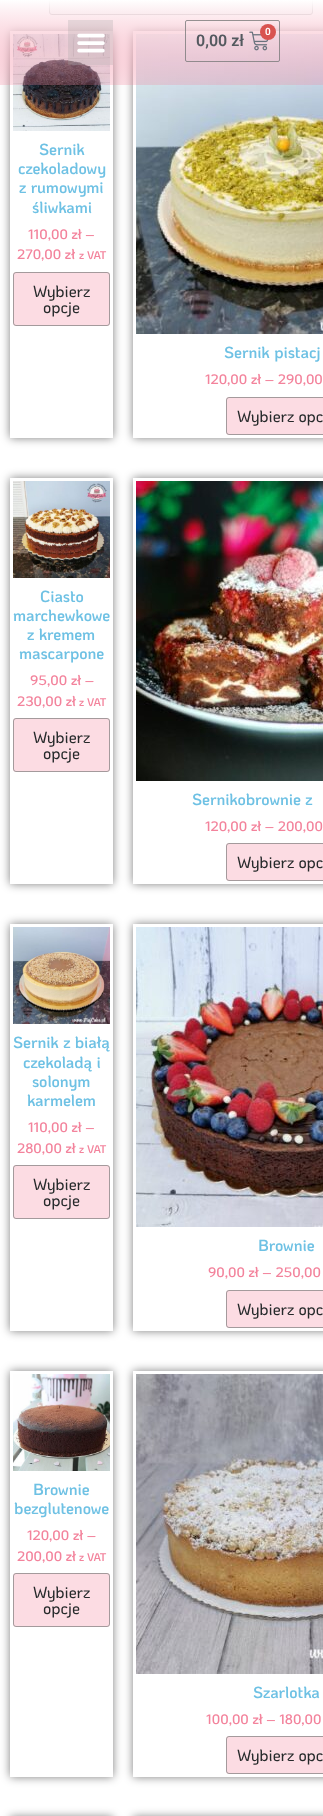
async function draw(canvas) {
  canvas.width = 323
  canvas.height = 1816
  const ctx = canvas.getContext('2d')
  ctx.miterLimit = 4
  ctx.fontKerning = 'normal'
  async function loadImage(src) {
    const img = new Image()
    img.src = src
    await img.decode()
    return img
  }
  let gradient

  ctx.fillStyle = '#fff'
  ctx.fillRect(0, 0, 323, 1816)
  ctx.fillStyle = '#efefef'
  ctx.beginPath()
  ctx.roundRect(49.5, -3.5, 263, 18, 2.5)
  ctx.fill()
  ctx.strokeStyle = '#666'
  ctx.stroke()
  ctx.save()
  ctx.beginPath()
  ctx.moveTo(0, 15)
  ctx.lineTo(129, 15)
  ctx.lineTo(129, 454)
  ctx.lineTo(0, 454)
  ctx.closePath()
  ctx.moveTo(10, 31)
  ctx.lineTo(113, 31)
  ctx.lineTo(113, 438)
  ctx.lineTo(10, 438)
  ctx.closePath()
  ctx.clip('evenodd')
  ctx.fillStyle = '#00000080'
  ctx.filter = 'blur(5px)'
  ctx.beginPath()
  ctx.rect(10, 31, 103, 407)
  ctx.fill()
  ctx.filter = 'none'
  ctx.restore()
  ctx.drawImage(await loadImage('image2.png'), 13, 34, 97, 97)
  ctx.save()
  ctx.beginPath()
  ctx.moveTo(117, 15)
  ctx.lineTo(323, 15)
  ctx.lineTo(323, 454)
  ctx.lineTo(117, 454)
  ctx.closePath()
  ctx.moveTo(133, 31)
  ctx.lineTo(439, 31)
  ctx.lineTo(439, 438)
  ctx.lineTo(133, 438)
  ctx.closePath()
  ctx.clip('evenodd')
  ctx.fillStyle = '#00000080'
  ctx.filter = 'blur(5px)'
  ctx.beginPath()
  ctx.rect(133, 31, 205, 407)
  ctx.fill()
  ctx.filter = 'none'
  ctx.restore()
  ctx.drawImage(await loadImage('image3.png'), 136, 34, 187, 300)
  gradient = ctx.createLinearGradient(162, 85, 162, 0)
  gradient.addColorStop(0, '#f3839c45')
  gradient.addColorStop(1, '#fff')
  ctx.fillStyle = gradient
  ctx.fillRect(0, 0, 323, 85)
  ctx.fillStyle = '#aaaaaa47'
  ctx.fillRect(68, 20, 45, 45)
  ctx.drawImage(await loadImage('image0.png'), 77, 33, 28, 20)
  ctx.beginPath()
  ctx.roundRect(185.5, 20.5, 94, 41, 1.5)
  ctx.strokeStyle = '#7a7a7acc'
  ctx.stroke()
  ctx.drawImage(await loadImage('image1.png'), 249, 31, 20, 20)
  ctx.fillStyle = '#d9534f'
  ctx.beginPath()
  ctx.arc(268, 32, 8, 0, 2 * Math.PI)
  ctx.fill()
  ctx.font = '600 10px Roboto'
  ctx.fillStyle = '#fff'
  ctx.fillText('0', 265, 35)
  ctx.font = '600 16px Roboto'
  ctx.fillStyle = '#54595f'
  ctx.fillText('0,00 zł', 196, 46)
  ctx.font = '600 16px KoHo'
  ctx.fillStyle = '#6ec1e4'
  ctx.fillText('Sernik', 39, 155)
  ctx.fillText('czekoladowy', 18, 174)
  ctx.fillText('z rumowymi', 19, 193)
  ctx.fillText('śliwkami', 32, 213)
  ctx.font = '600 13.75px KoHo'
  ctx.fillStyle = '#f3839c'
  ctx.fillText('110,00 zł –', 28, 239)
  ctx.fillText('270,00 zł', 17, 259)
  ctx.font = '600 11px KoHo'
  ctx.fillText('z VAT', 79, 259)
  ctx.fillStyle = '#fcdce3'
  ctx.beginPath()
  ctx.roundRect(13, 272, 97, 54, 3)
  ctx.fill()
  ctx.beginPath()
  ctx.roundRect(13.5, 272.5, 96, 53, 2.5)
  ctx.strokeStyle = '#7a7a7aad'
  ctx.stroke()
  ctx.font = '500 16px KoHo'
  ctx.fillStyle = '#262a2b'
  ctx.fillText('Wybierz', 33, 297)
  ctx.fillText('opcje', 43, 313)
  ctx.font = '600 16px KoHo'
  ctx.fillStyle = '#6ec1e4'
  ctx.fillText('Sernik pistacj', 224, 358)
  ctx.font = '600 13.75px KoHo'
  ctx.fillStyle = '#f3839c'
  ctx.fillText('120,00 zł – 290,00', 205, 384)
  ctx.fillStyle = '#fcdce3'
  ctx.beginPath()
  ctx.roundRect(226, 397, 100, 38, 3)
  ctx.fill()
  ctx.beginPath()
  ctx.roundRect(226.5, 397.5, 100, 37, 2.5)
  ctx.stroke()
  ctx.font = '500 16px KoHo'
  ctx.fillStyle = '#262a2b'
  ctx.fillText('Wybierz opc', 237, 422)
  ctx.save()
  ctx.beginPath()
  ctx.moveTo(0, 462)
  ctx.lineTo(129, 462)
  ctx.lineTo(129, 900)
  ctx.lineTo(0, 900)
  ctx.closePath()
  ctx.moveTo(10, 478)
  ctx.lineTo(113, 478)
  ctx.lineTo(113, 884)
  ctx.lineTo(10, 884)
  ctx.closePath()
  ctx.clip('evenodd')
  ctx.fillStyle = '#00000080'
  ctx.filter = 'blur(5px)'
  ctx.beginPath()
  ctx.rect(10, 478, 103, 406)
  ctx.fill()
  ctx.filter = 'none'
  ctx.restore()
  ctx.drawImage(await loadImage('image4.png'), 13, 481, 97, 97)
  ctx.font = '600 16px KoHo'
  ctx.fillStyle = '#6ec1e4'
  ctx.fillText('Ciasto', 40, 602)
  ctx.fillText('marchewkowe', 13, 621)
  ctx.fillText('z kremem', 27, 640)
  ctx.fillText('mascarpone', 19, 659)
  ctx.font = '600 13.75px KoHo'
  ctx.fillStyle = '#f3839c'
  ctx.fillText('95,00 zł –', 30, 685)
  ctx.fillText('230,00 zł', 17, 706)
  ctx.font = '600 11px KoHo'
  ctx.fillText('z VAT', 79, 706)
  ctx.fillStyle = '#fcdce3'
  ctx.beginPath()
  ctx.roundRect(13, 718, 97, 54, 3)
  ctx.fill()
  ctx.beginPath()
  ctx.roundRect(13.5, 718.5, 96, 53, 2.5)
  ctx.stroke()
  ctx.font = '500 16px KoHo'
  ctx.fillStyle = '#262a2b'
  ctx.fillText('Wybierz', 33, 743)
  ctx.fillText('opcje', 43, 759)
  ctx.save()
  ctx.beginPath()
  ctx.moveTo(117, 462)
  ctx.lineTo(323, 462)
  ctx.lineTo(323, 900)
  ctx.lineTo(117, 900)
  ctx.closePath()
  ctx.moveTo(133, 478)
  ctx.lineTo(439, 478)
  ctx.lineTo(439, 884)
  ctx.lineTo(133, 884)
  ctx.closePath()
  ctx.clip('evenodd')
  ctx.fillStyle = '#00000080'
  ctx.filter = 'blur(5px)'
  ctx.beginPath()
  ctx.rect(133, 478, 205, 406)
  ctx.fill()
  ctx.filter = 'none'
  ctx.restore()
  ctx.drawImage(await loadImage('image5.png'), 136, 481, 187, 300)
  ctx.font = '600 16px KoHo'
  ctx.fillStyle = '#6ec1e4'
  ctx.fillText('Sernikobrownie z', 192, 805)
  ctx.font = '600 13.75px KoHo'
  ctx.fillStyle = '#f3839c'
  ctx.fillText('120,00 zł – 200,00', 205, 831)
  ctx.fillStyle = '#fcdce3'
  ctx.beginPath()
  ctx.roundRect(226, 843, 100, 38, 3)
  ctx.fill()
  ctx.beginPath()
  ctx.roundRect(226.5, 843.5, 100, 37, 2.5)
  ctx.stroke()
  ctx.font = '500 16px KoHo'
  ctx.fillStyle = '#262a2b'
  ctx.fillText('Wybierz opc', 237, 868)
  ctx.save()
  ctx.beginPath()
  ctx.moveTo(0, 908)
  ctx.lineTo(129, 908)
  ctx.lineTo(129, 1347)
  ctx.lineTo(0, 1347)
  ctx.closePath()
  ctx.moveTo(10, 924)
  ctx.lineTo(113, 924)
  ctx.lineTo(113, 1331)
  ctx.lineTo(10, 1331)
  ctx.closePath()
  ctx.clip('evenodd')
  ctx.fillStyle = '#00000080'
  ctx.filter = 'blur(5px)'
  ctx.beginPath()
  ctx.rect(10, 924, 103, 407)
  ctx.fill()
  ctx.filter = 'none'
  ctx.restore()
  ctx.drawImage(await loadImage('image6.png'), 13, 927, 97, 97)
  ctx.font = '600 16px KoHo'
  ctx.fillStyle = '#6ec1e4'
  ctx.fillText('Sernik z białą', 13, 1048)
  ctx.fillText('czekoladą i', 23, 1068)
  ctx.fillText('solonym', 32, 1087)
  ctx.fillText('karmelem', 27, 1106)
  ctx.font = '600 13.75px KoHo'
  ctx.fillStyle = '#f3839c'
  ctx.fillText('110,00 zł –', 28, 1132)
  ctx.fillText('280,00 zł', 17, 1153)
  ctx.font = '600 11px KoHo'
  ctx.fillText('z VAT', 79, 1153)
  ctx.fillStyle = '#fcdce3'
  ctx.beginPath()
  ctx.roundRect(13, 1165, 97, 54, 3)
  ctx.fill()
  ctx.beginPath()
  ctx.roundRect(13.5, 1165.5, 96, 53, 2.5)
  ctx.stroke()
  ctx.font = '500 16px KoHo'
  ctx.fillStyle = '#262a2b'
  ctx.fillText('Wybierz', 33, 1190)
  ctx.fillText('opcje', 43, 1206)
  ctx.save()
  ctx.beginPath()
  ctx.moveTo(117, 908)
  ctx.lineTo(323, 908)
  ctx.lineTo(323, 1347)
  ctx.lineTo(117, 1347)
  ctx.closePath()
  ctx.moveTo(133, 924)
  ctx.lineTo(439, 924)
  ctx.lineTo(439, 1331)
  ctx.lineTo(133, 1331)
  ctx.closePath()
  ctx.clip('evenodd')
  ctx.fillStyle = '#00000080'
  ctx.filter = 'blur(5px)'
  ctx.beginPath()
  ctx.rect(133, 924, 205, 407)
  ctx.fill()
  ctx.filter = 'none'
  ctx.restore()
  ctx.drawImage(await loadImage('image7.png'), 136, 927, 187, 300)
  ctx.font = '600 16px KoHo'
  ctx.fillStyle = '#6ec1e4'
  ctx.fillText('Brownie', 258, 1251)
  ctx.font = '600 13.75px KoHo'
  ctx.fillStyle = '#f3839c'
  ctx.fillText('90,00 zł – 250,00', 208, 1277)
  ctx.fillStyle = '#fcdce3'
  ctx.beginPath()
  ctx.roundRect(226, 1290, 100, 38, 3)
  ctx.fill()
  ctx.beginPath()
  ctx.roundRect(226.5, 1290.5, 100, 37, 2.5)
  ctx.stroke()
  ctx.font = '500 16px KoHo'
  ctx.fillStyle = '#262a2b'
  ctx.fillText('Wybierz opc', 237, 1315)
  ctx.save()
  ctx.beginPath()
  ctx.moveTo(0, 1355)
  ctx.lineTo(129, 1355)
  ctx.lineTo(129, 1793)
  ctx.lineTo(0, 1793)
  ctx.closePath()
  ctx.moveTo(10, 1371)
  ctx.lineTo(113, 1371)
  ctx.lineTo(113, 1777)
  ctx.lineTo(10, 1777)
  ctx.closePath()
  ctx.clip('evenodd')
  ctx.fillStyle = '#00000080'
  ctx.filter = 'blur(5px)'
  ctx.beginPath()
  ctx.rect(10, 1371, 103, 406)
  ctx.fill()
  ctx.filter = 'none'
  ctx.restore()
  ctx.drawImage(await loadImage('image8.png'), 13, 1374, 97, 97)
  ctx.font = '600 16px KoHo'
  ctx.fillStyle = '#6ec1e4'
  ctx.fillText('Brownie', 33, 1495)
  ctx.fillText('bezglutenowe', 14, 1514)
  ctx.font = '600 13.75px KoHo'
  ctx.fillStyle = '#f3839c'
  ctx.fillText('120,00 zł –', 27, 1540)
  ctx.fillText('200,00 zł', 17, 1561)
  ctx.font = '600 11px KoHo'
  ctx.fillText('z VAT', 79, 1561)
  ctx.fillStyle = '#fcdce3'
  ctx.beginPath()
  ctx.roundRect(13, 1573, 97, 54, 3)
  ctx.fill()
  ctx.beginPath()
  ctx.roundRect(13.5, 1573.5, 96, 53, 2.5)
  ctx.stroke()
  ctx.font = '500 16px KoHo'
  ctx.fillStyle = '#262a2b'
  ctx.fillText('Wybierz', 33, 1598)
  ctx.fillText('opcje', 43, 1614)
  ctx.save()
  ctx.beginPath()
  ctx.moveTo(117, 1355)
  ctx.lineTo(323, 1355)
  ctx.lineTo(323, 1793)
  ctx.lineTo(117, 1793)
  ctx.closePath()
  ctx.moveTo(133, 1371)
  ctx.lineTo(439, 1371)
  ctx.lineTo(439, 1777)
  ctx.lineTo(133, 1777)
  ctx.closePath()
  ctx.clip('evenodd')
  ctx.fillStyle = '#00000080'
  ctx.filter = 'blur(5px)'
  ctx.beginPath()
  ctx.rect(133, 1371, 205, 406)
  ctx.fill()
  ctx.filter = 'none'
  ctx.restore()
  ctx.drawImage(await loadImage('image9.png'), 136, 1374, 187, 300)
  ctx.font = '600 16px KoHo'
  ctx.fillStyle = '#6ec1e4'
  ctx.fillText('Szarlotka', 253, 1698)
  ctx.font = '600 13.75px KoHo'
  ctx.fillStyle = '#f3839c'
  ctx.fillText('100,00 zł – 180,00', 206, 1724)
  ctx.fillStyle = '#fcdce3'
  ctx.beginPath()
  ctx.roundRect(226, 1736, 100, 38, 3)
  ctx.fill()
  ctx.beginPath()
  ctx.roundRect(226.5, 1736.5, 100, 37, 2.5)
  ctx.stroke()
  ctx.font = '500 16px KoHo'
  ctx.fillStyle = '#262a2b'
  ctx.fillText('Wybierz opc', 237, 1761)
  ctx.fillStyle = '#00000080'
  ctx.filter = 'blur(5px)'
  ctx.beginPath()
  ctx.rect(10, 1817, 103, 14)
  ctx.fill()
  ctx.filter = 'none'
  ctx.filter = 'blur(5px)'
  ctx.beginPath()
  ctx.rect(133, 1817, 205, 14)
  ctx.fill()
  ctx.filter = 'none'
}

draw(document.querySelector('canvas'))
